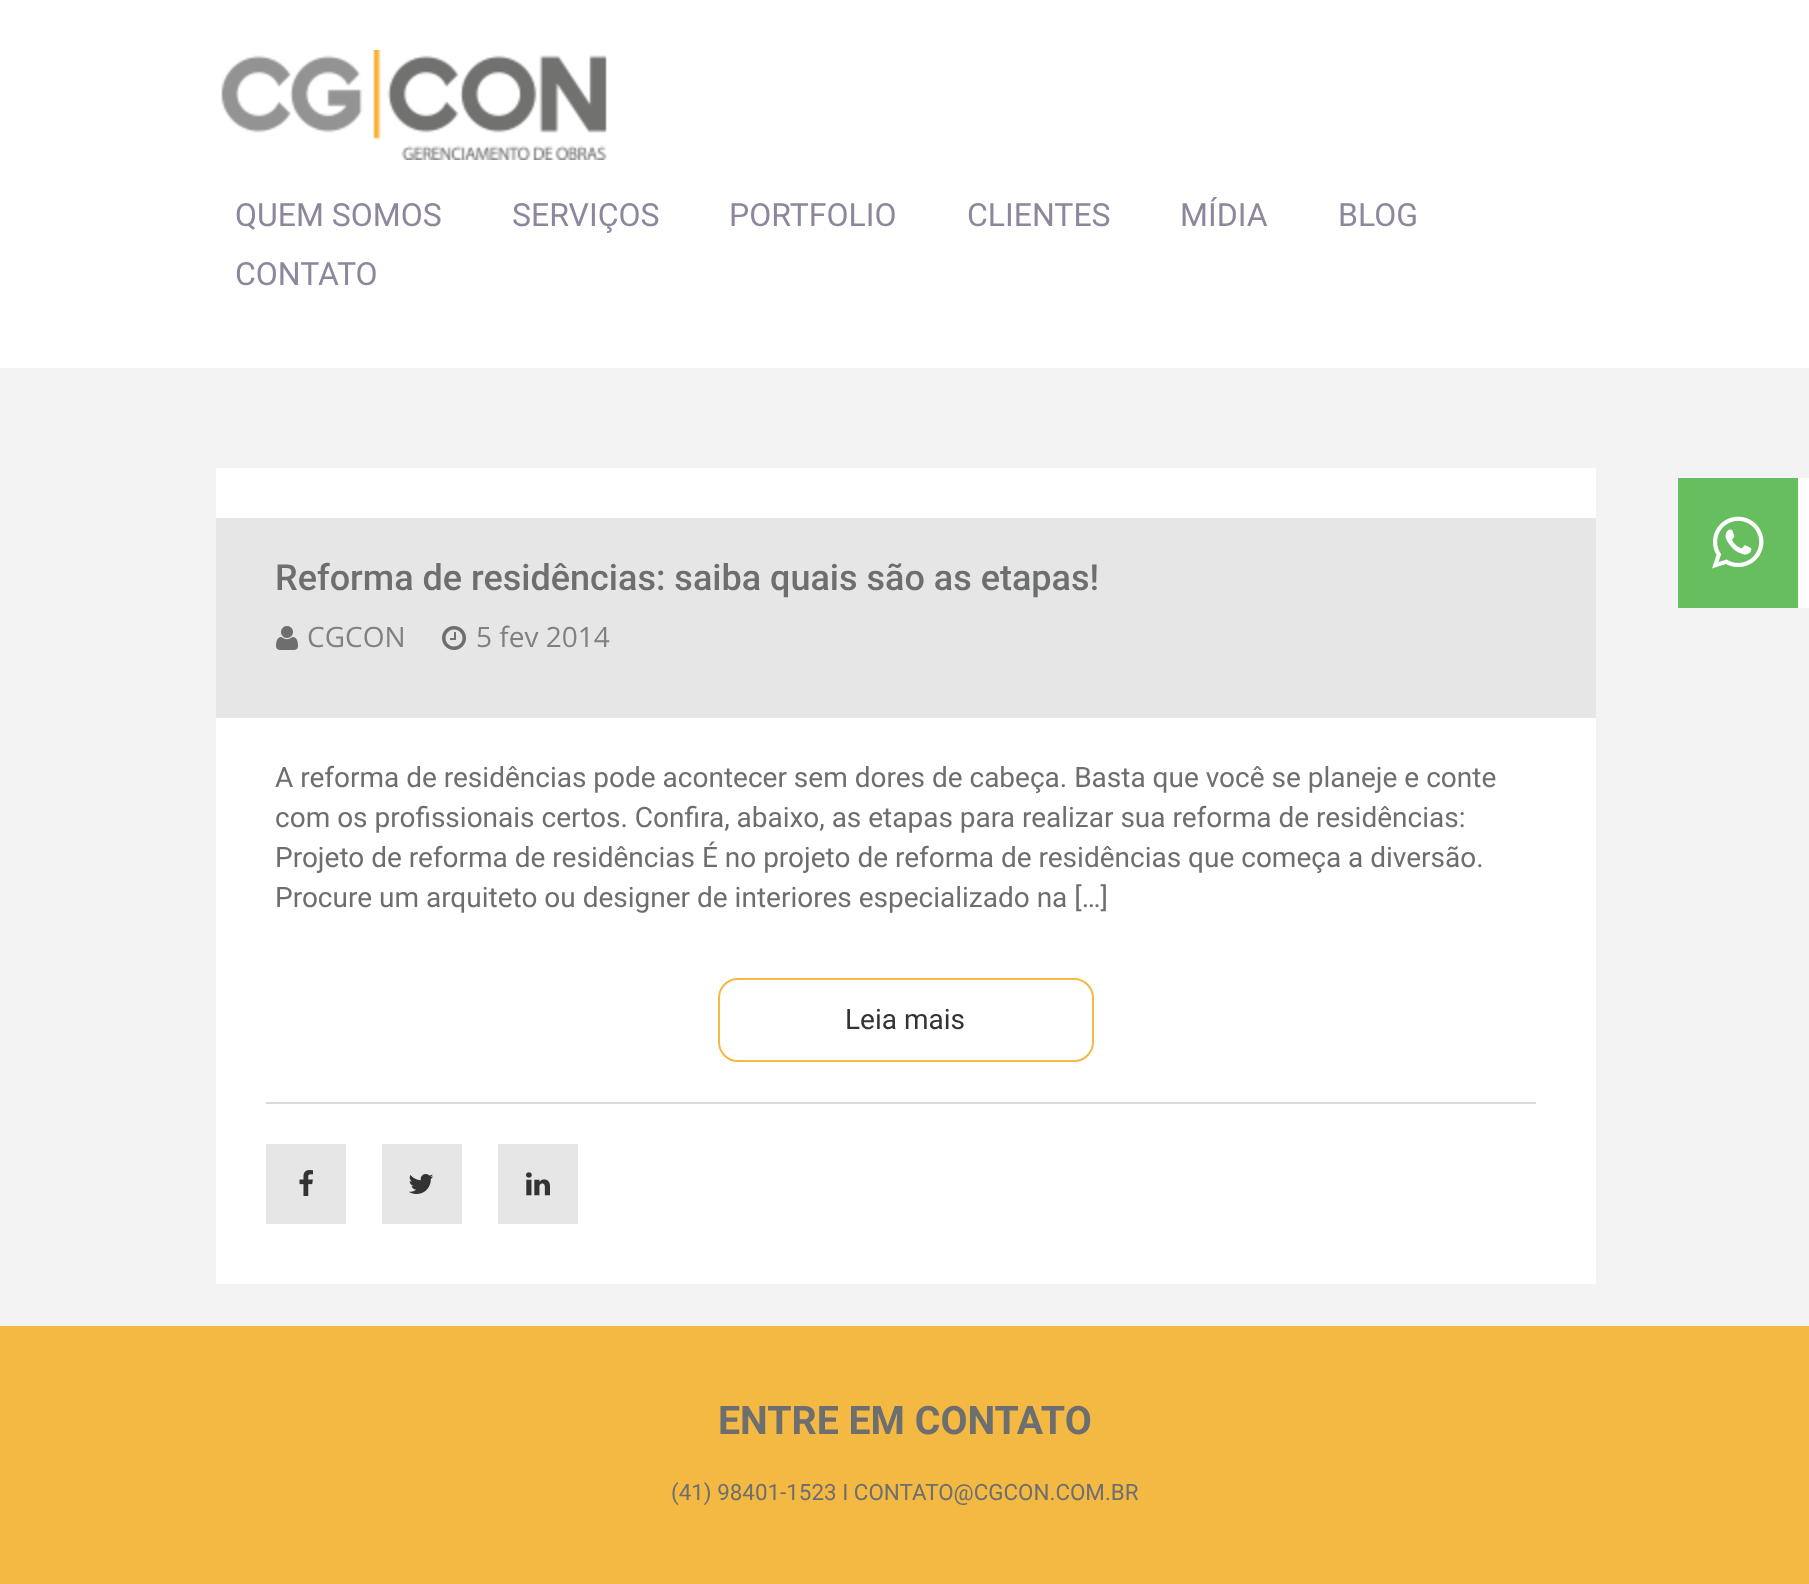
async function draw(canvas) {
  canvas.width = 1809
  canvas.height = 1584
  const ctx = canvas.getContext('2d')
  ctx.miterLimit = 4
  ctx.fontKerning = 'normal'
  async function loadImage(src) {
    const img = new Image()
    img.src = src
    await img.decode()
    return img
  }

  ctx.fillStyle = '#fff'
  ctx.fillRect(0, 0, 1809, 1584)
  ctx.drawImage(await loadImage('image0.png'), 221, 50, 386, 110)
  ctx.font = '32px Roboto'
  ctx.fillStyle = '#8e869d'
  ctx.fillText('QUEM SOMOS', 235, 226)
  ctx.fillText('SERVIÇOS', 512, 226)
  ctx.fillText('PORTFOLIO', 729, 226)
  ctx.fillText('CLIENTES', 967, 226)
  ctx.fillText('MÍDIA', 1180, 226)
  ctx.fillText('BLOG', 1338, 226)
  ctx.fillText('CONTATO', 235, 285)
  ctx.fillStyle = '#f3f3f3'
  ctx.fillRect(0, 368, 1809, 958)
  ctx.fillStyle = '#fff'
  ctx.fillRect(216, 468, 1380, 816)
  ctx.fillStyle = '#e6e6e6'
  ctx.fillRect(216, 518, 1380, 200)
  ctx.font = '500 36px Roboto'
  ctx.fillStyle = '#6d6e70'
  ctx.fillText('Reforma de residências: saiba quais são as etapas!', 275, 590)
  ctx.drawImage(await loadImage('image1.png'), 276, 626, 22, 24)
  ctx.font = '28px Open Sans'
  ctx.fillStyle = '#808080'
  ctx.fillText('CGCON', 307, 647)
  ctx.drawImage(await loadImage('image2.png'), 442, 626, 24, 24)
  ctx.fillText('5 fev 2014', 476, 647)
  ctx.font = '28px Roboto'
  ctx.fillStyle = '#6d6e70'
  ctx.fillText('A reforma de residências pode acontecer sem dores de cabeça. Basta que você se planeje e conte', 275, 787)
  ctx.fillText('com os profissionais certos. Confira, abaixo, as etapas para realizar sua reforma de residências:', 275, 827)
  ctx.fillText('Projeto de reforma de residências É no projeto de reforma de residências que começa a diversão.', 275, 867)
  ctx.fillText('Procure um arquiteto ou designer de interiores especializado na […]', 275, 907)
  ctx.beginPath()
  ctx.roundRect(719, 979, 374, 82, 19)
  ctx.strokeStyle = '#f4b942'
  ctx.lineWidth = 2
  ctx.stroke()
  ctx.fillStyle = '#333'
  ctx.fillText('Leia mais', 845, 1029)
  ctx.fillStyle = '#d9d9d9'
  ctx.fillRect(266, 1102, 1270, 2)
  ctx.fillStyle = '#e6e6e6'
  ctx.fillRect(266, 1144, 80, 80)
  ctx.drawImage(await loadImage('image3.png'), 299, 1170, 14, 26)
  ctx.fillRect(382, 1144, 80, 80)
  ctx.drawImage(await loadImage('image4.png'), 408, 1174, 26, 20)
  ctx.fillRect(498, 1144, 80, 80)
  ctx.drawImage(await loadImage('image5.png'), 526, 1172, 24, 24)
  ctx.fillStyle = '#f4b942'
  ctx.fillRect(0, 1326, 1809, 258)
  ctx.font = 'bold 39.25px Roboto'
  ctx.fillStyle = '#6d6e70'
  ctx.fillText('ENTRE EM CONTATO', 718, 1434)
  ctx.font = '22.4px Roboto'
  ctx.fillText('(41) 98401-1523 I CONTATO@CGCON.COM.BR', 671, 1500)
  ctx.fillStyle = '#fff'
  ctx.fillRect(1798, 478, 11, 130)
  ctx.fillStyle = '#66be5e'
  ctx.fillRect(1678, 478, 120, 130)
  ctx.drawImage(await loadImage('image6.png'), 1712, 516, 52, 53)
}

draw(document.querySelector('canvas'))
